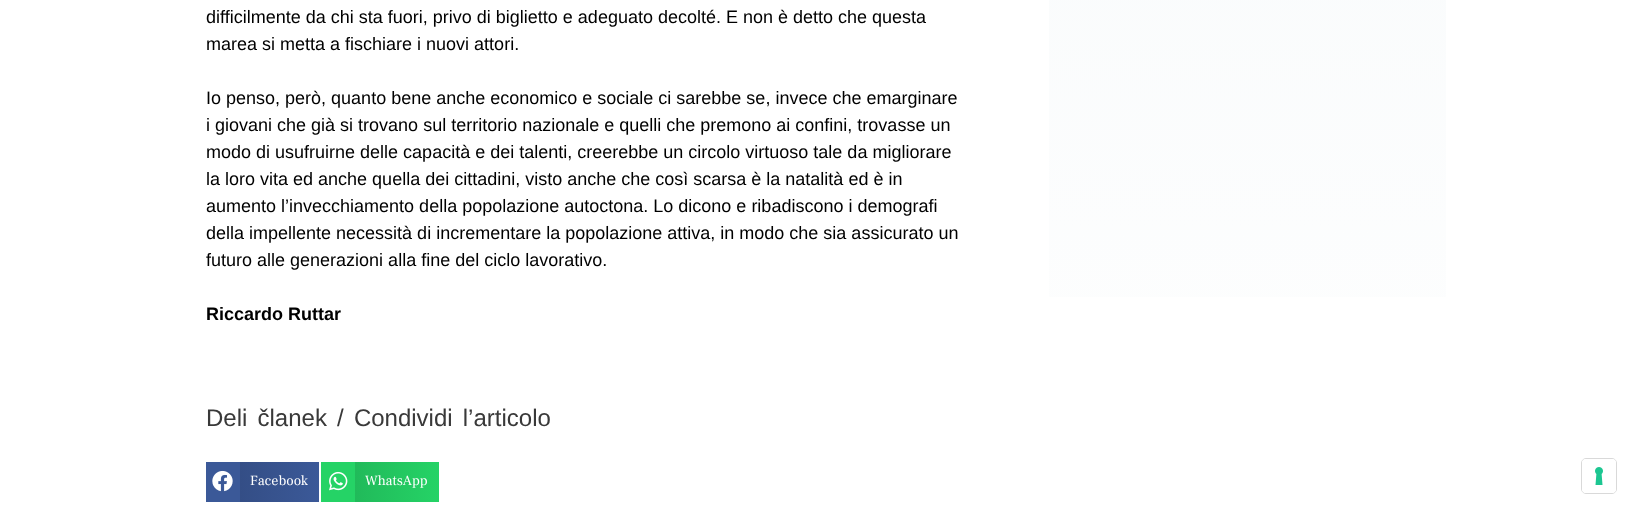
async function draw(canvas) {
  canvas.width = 1632
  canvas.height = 509
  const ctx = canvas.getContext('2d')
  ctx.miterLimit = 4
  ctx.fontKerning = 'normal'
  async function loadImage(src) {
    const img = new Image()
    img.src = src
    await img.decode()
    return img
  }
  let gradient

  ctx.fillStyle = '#fff'
  ctx.fillRect(0, 0, 1632, 509)
  ctx.font = '18px Liberation Sans'
  ctx.fillStyle = '#000'
  ctx.fillText('difficilmente da chi sta fuori, privo di biglietto e adeguato decolté. E non è detto che questa', 206, 23)
  ctx.fillText('marea si metta a fischiare i nuovi attori.', 206, 50)
  ctx.fillText('Io penso, però, quanto bene anche economico e sociale ci sarebbe se, invece che emarginare', 206, 104)
  ctx.fillText('i giovani che già si trovano sul territorio nazionale e quelli che premono ai confini, trovasse un', 206, 131)
  ctx.fillText('modo di usufruirne delle capacità e dei talenti, creerebbe un circolo virtuoso tale da migliorare', 206, 158)
  ctx.fillText('la loro vita ed anche quella dei cittadini, visto anche che così scarsa è la natalità ed è in', 206, 185)
  ctx.fillText('aumento l’invecchiamento della popolazione autoctona. Lo dicono e ribadiscono i demografi', 206, 212)
  ctx.fillText('della impellente necessità di incrementare la popolazione attiva, in modo che sia assicurato un', 206, 239)
  ctx.fillText('futuro alle generazioni alla fine del ciclo lavorativo.', 206, 266)
  ctx.font = 'bold 18px Liberation Sans'
  ctx.fillText('Riccardo Ruttar', 206, 320)
  ctx.wordSpacing = '3.5px'
  ctx.font = '24px Liberation Sans'
  ctx.fillStyle = '#393939'
  ctx.fillText('Deli članek / Condividi l’articolo', 206, 426)
  ctx.fillStyle = '#3b5998'
  ctx.fillRect(206, 462, 34, 40)
  ctx.drawImage(await loadImage('image0.png'), 212, 470, 21, 22)
  gradient = ctx.createLinearGradient(240, 482, 319, 482)
  gradient.addColorStop(0, '#344e86')
  gradient.addColorStop(1, '#3b5998')
  ctx.fillStyle = gradient
  ctx.fillRect(240, 462, 79, 40)
  ctx.wordSpacing = '0px'
  ctx.font = '14px Frank Ruhl Libre'
  ctx.fillStyle = '#fff'
  ctx.fillText('Facebook', 250, 485)
  ctx.fillStyle = '#25d366'
  ctx.fillRect(321, 462, 34, 40)
  ctx.drawImage(await loadImage('image1.png'), 329, 471, 19, 20)
  gradient = ctx.createLinearGradient(355, 482, 439, 482)
  gradient.addColorStop(0, '#21ba5a')
  gradient.addColorStop(1, '#25d366')
  ctx.fillStyle = gradient
  ctx.fillRect(355, 462, 84, 40)
  ctx.fillStyle = '#fff'
  ctx.fillText('WhatsApp', 365, 485)
  gradient = ctx.createLinearGradient(1248, 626, 1247, -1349)
  gradient.addColorStop(0, '#fff')
  gradient.addColorStop(1, '#f0f5f7')
  ctx.fillStyle = gradient
  ctx.fillRect(1049, 0, 397, 297)
  ctx.beginPath()
  ctx.roundRect(1581.5, 458.5, 35, 35, 4.5)
  ctx.strokeStyle = '#d9d9d9'
  ctx.stroke()
  ctx.fillStyle = '#fff'
  ctx.beginPath()
  ctx.roundRect(1582, 459, 34, 34, 4)
  ctx.fill()
  ctx.drawImage(await loadImage('image2.png'), 1595, 467, 8, 18)
}

draw(document.querySelector('canvas'))
